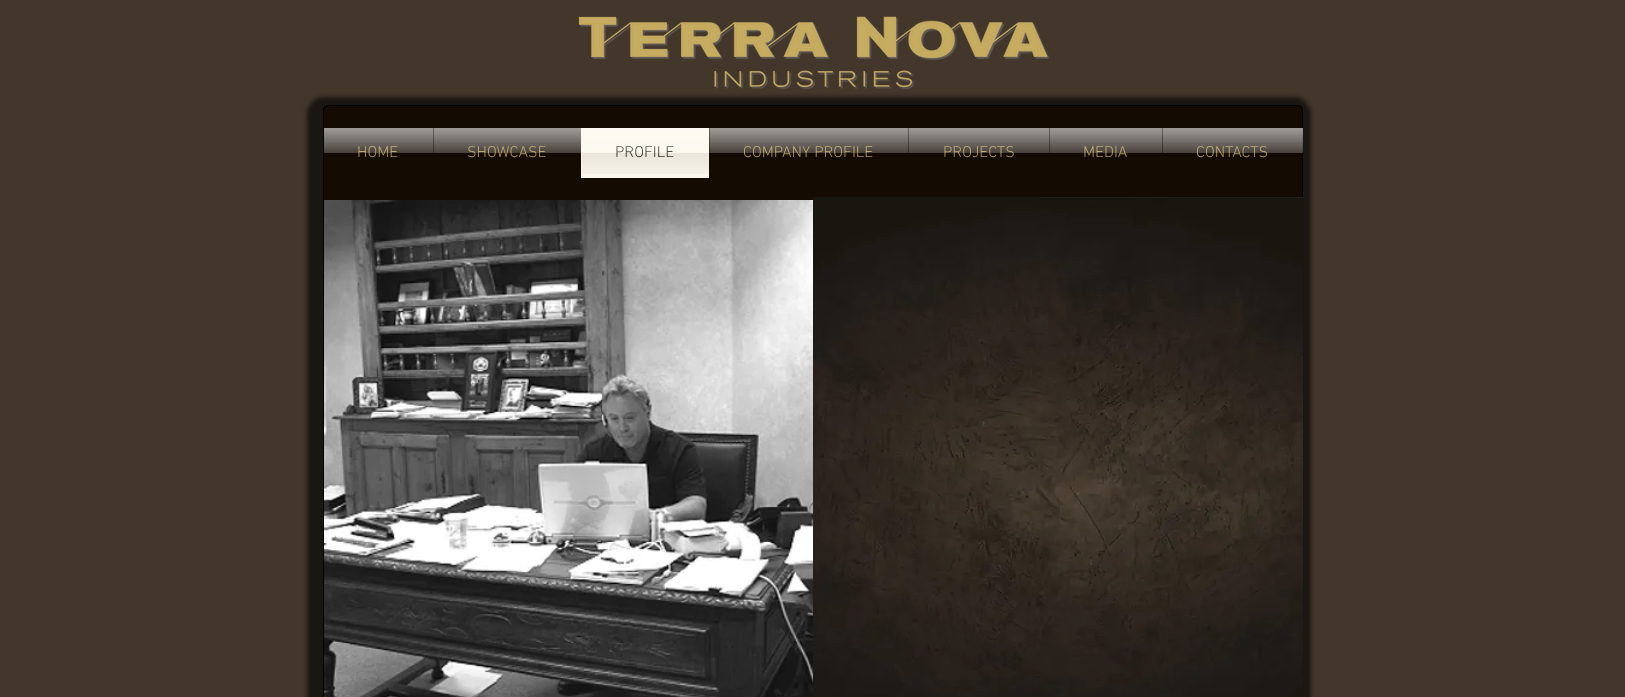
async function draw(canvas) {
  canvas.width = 1625
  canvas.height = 697
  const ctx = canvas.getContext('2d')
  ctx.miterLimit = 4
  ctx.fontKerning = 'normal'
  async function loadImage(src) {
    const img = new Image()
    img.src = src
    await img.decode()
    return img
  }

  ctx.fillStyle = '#43372c'
  ctx.fillRect(0, 0, 1625, 697)
  ctx.drawImage(await loadImage('image0.png'), 578, 16, 472, 74)
  ctx.fillStyle = '#00000099'
  ctx.filter = 'blur(2px)'
  ctx.beginPath()
  ctx.roundRect(307, 97, 1004, 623, 17)
  ctx.fill()
  ctx.filter = 'none'
  ctx.fillStyle = '#140b03'
  ctx.beginPath()
  ctx.roundRect(323.5, 105.5, 979, 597, 4.5)
  ctx.fill()
  ctx.strokeStyle = '#000'
  ctx.stroke()
  ctx.drawImage(await loadImage('image1.png'), 324, 200, 489, 497)
  ctx.drawImage(await loadImage('image2.png'), 813, 197, 490, 500)
  ctx.drawImage(await loadImage('image3.png'), 324, 128, 979, 25)
  ctx.font = '300 16px "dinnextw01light"'
  ctx.fillStyle = '#b59d5b'
  ctx.fillText('HOME', 357, 157)
  ctx.drawImage(await loadImage('image4.png'), 324, 128, 109, 29)
  ctx.fillText('SHOWCASE', 467, 157)
  ctx.drawImage(await loadImage('image5.png'), 434, 128, 147, 29)
  ctx.fillStyle = '#fcf8ed'
  ctx.fillRect(581, 128, 128, 50)
  ctx.fillStyle = '#372e27'
  ctx.fillText('PROFILE', 615, 157)
  ctx.drawImage(await loadImage('image6.png'), 582, 128, 127, 46)
  ctx.fillStyle = '#b59d5b'
  ctx.fillText('COMPANY PROFILE', 743, 157)
  ctx.drawImage(await loadImage('image7.png'), 710, 128, 198, 29)
  ctx.fillText('PROJECTS', 943, 157)
  ctx.drawImage(await loadImage('image8.png'), 909, 128, 140, 29)
  ctx.fillText('MEDIA', 1083, 157)
  ctx.drawImage(await loadImage('image9.png'), 1050, 128, 112, 29)
  ctx.fillText('CONTACTS', 1196, 157)
  ctx.drawImage(await loadImage('image10.png'), 1163, 128, 140, 29)
}

draw(document.querySelector('canvas'))
